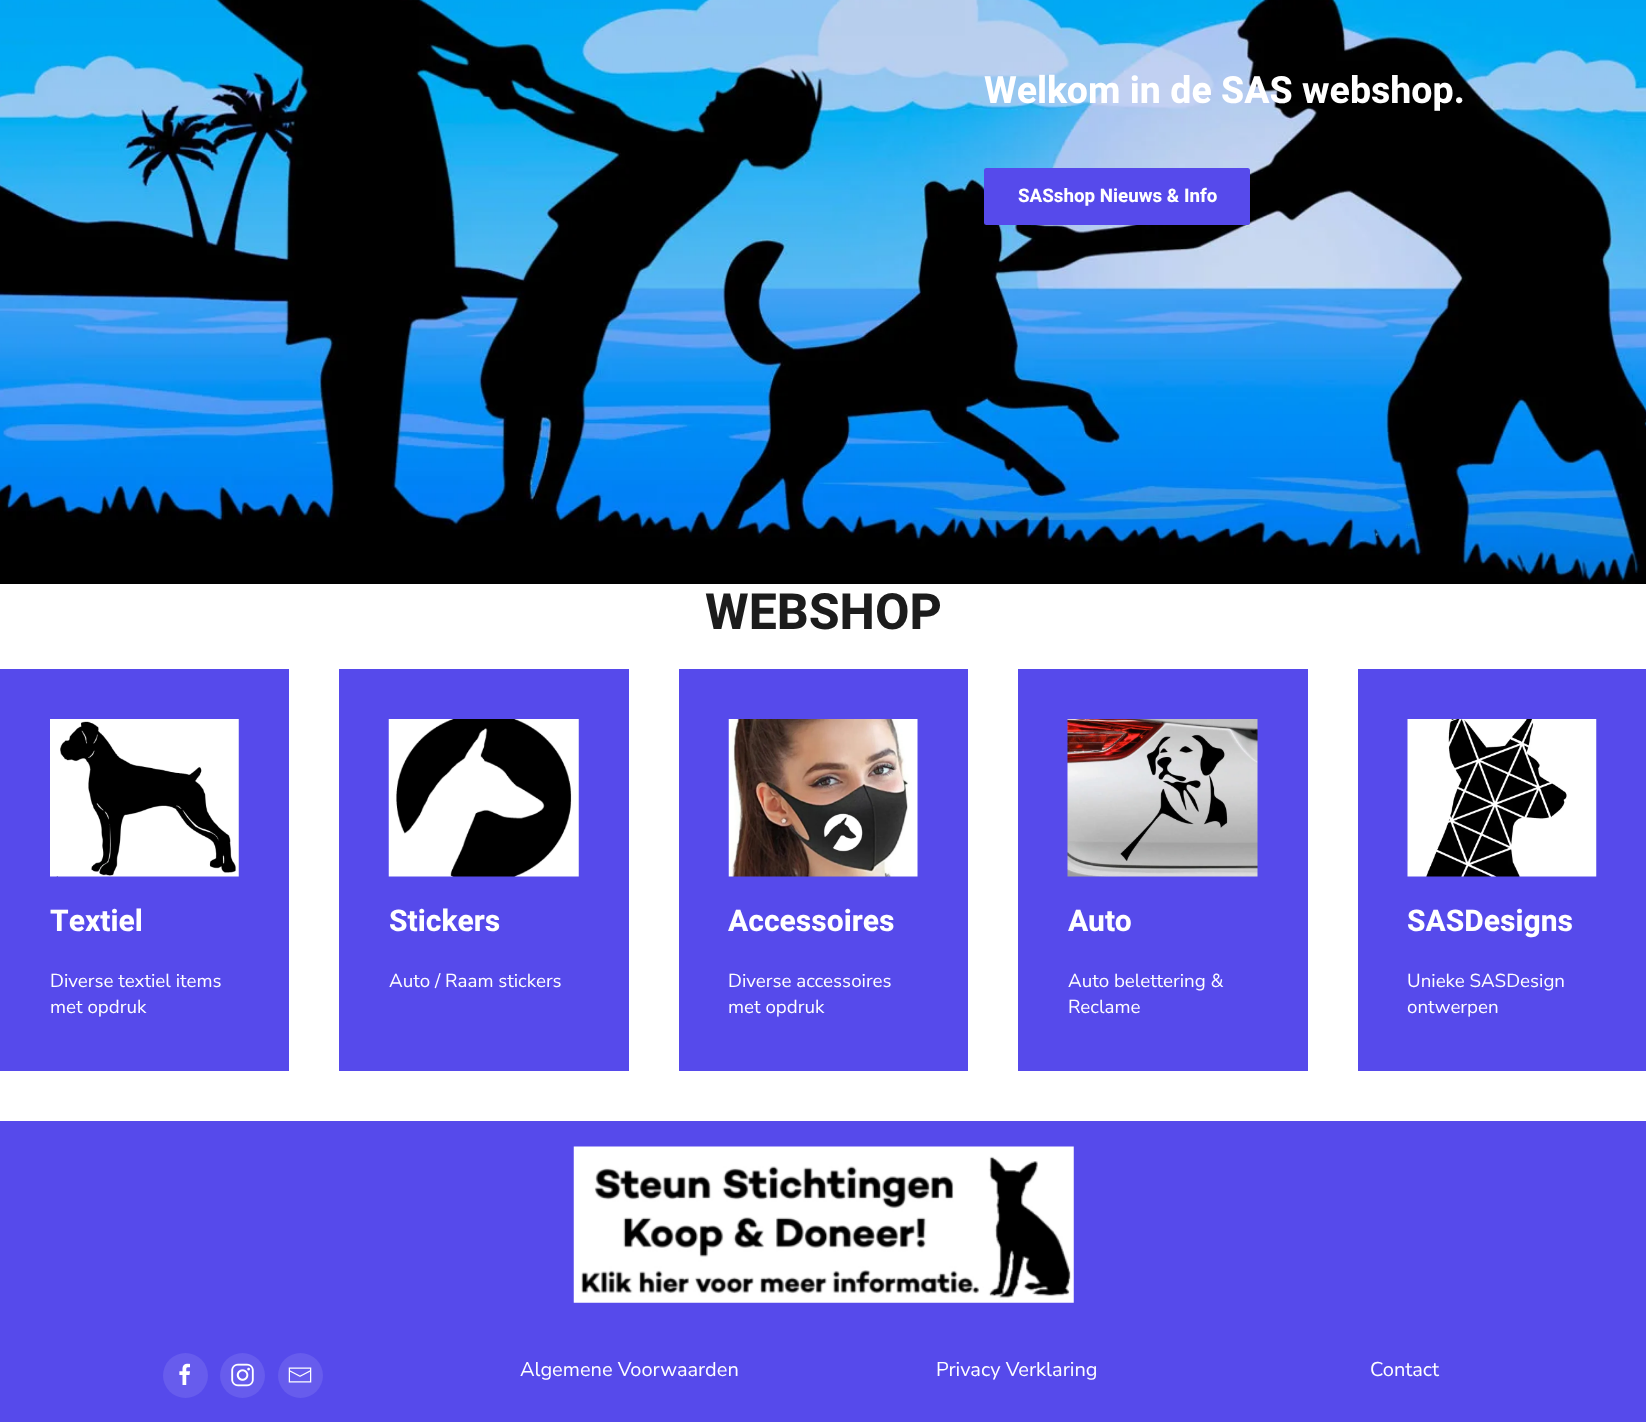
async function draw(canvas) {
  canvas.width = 1646
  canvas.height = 1422
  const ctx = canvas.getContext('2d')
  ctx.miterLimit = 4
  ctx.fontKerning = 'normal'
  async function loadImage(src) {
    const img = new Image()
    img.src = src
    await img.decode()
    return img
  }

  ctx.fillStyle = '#fff'
  ctx.fillRect(0, 0, 1646, 1422)
  ctx.drawImage(await loadImage('image0.png'), 0, 0, 1646, 584)
  ctx.font = 'bold 37.5px Heebo'
  ctx.fillText('Welkom in de SAS webshop.', 984, 103)
  ctx.fillStyle = '#564aeb'
  ctx.beginPath()
  ctx.roundRect(984, 168, 266, 57, 2.5)
  ctx.fill()
  ctx.font = 'bold 18.75px Heebo'
  ctx.fillStyle = '#fff'
  ctx.fillText('SASshop Nieuws & Info', 1018, 202)
  ctx.font = 'bold 50px Heebo'
  ctx.fillStyle = '#1c1c1c'
  ctx.fillText('WEBSHOP', 705, 629)
  ctx.fillStyle = '#564aeb'
  ctx.fillRect(0, 669, 289, 402)
  ctx.drawImage(await loadImage('image1.png'), 50, 719, 189, 158)
  ctx.font = 'bold 30px Heebo'
  ctx.fillStyle = '#fff'
  ctx.fillText('Textiel', 50, 931)
  ctx.font = '18.75px Nunito Sans'
  ctx.fillText('Diverse textiel items', 50, 987)
  ctx.fillText('met opdruk', 50, 1013)
  ctx.fillStyle = '#564aeb'
  ctx.fillRect(339, 669, 290, 402)
  ctx.drawImage(await loadImage('image2.png'), 388, 719, 191, 158)
  ctx.font = 'bold 30px Heebo'
  ctx.fillStyle = '#fff'
  ctx.fillText('Stickers', 389, 931)
  ctx.font = '18.75px Nunito Sans'
  ctx.fillText('Auto / Raam stickers', 389, 987)
  ctx.fillStyle = '#564aeb'
  ctx.fillRect(679, 669, 289, 402)
  ctx.drawImage(await loadImage('image3.png'), 728, 719, 190, 158)
  ctx.font = 'bold 30px Heebo'
  ctx.fillStyle = '#fff'
  ctx.fillText('Accessoires', 728, 931)
  ctx.font = '18.75px Nunito Sans'
  ctx.fillText('Diverse accessoires', 728, 987)
  ctx.fillText('met opdruk', 728, 1013)
  ctx.fillStyle = '#564aeb'
  ctx.fillRect(1018, 669, 290, 402)
  ctx.drawImage(await loadImage('image4.png'), 1067, 719, 191, 158)
  ctx.font = 'bold 30px Heebo'
  ctx.fillStyle = '#fff'
  ctx.fillText('Auto', 1068, 931)
  ctx.font = '18.75px Nunito Sans'
  ctx.fillText('Auto belettering &', 1068, 987)
  ctx.fillText('Reclame', 1068, 1013)
  ctx.fillStyle = '#564aeb'
  ctx.fillRect(1358, 669, 288, 402)
  ctx.drawImage(await loadImage('image5.png'), 1407, 719, 190, 158)
  ctx.font = 'bold 30px Heebo'
  ctx.fillStyle = '#fff'
  ctx.fillText('SASDesigns', 1407, 931)
  ctx.font = '18.75px Nunito Sans'
  ctx.fillText('Unieke SASDesign', 1407, 987)
  ctx.fillText('ontwerpen', 1407, 1013)
  ctx.fillStyle = '#564aeb'
  ctx.fillRect(0, 1121, 1646, 301)
  ctx.drawImage(await loadImage('image6.png'), 573, 1146, 501, 157)
  ctx.fillStyle = '#675ced'
  ctx.beginPath()
  ctx.arc(185.5, 1375.5, 22.5, 0, 2 * Math.PI)
  ctx.fill()
  ctx.drawImage(await loadImage('image7.png'), 179, 1363, 11, 22)
  ctx.beginPath()
  ctx.arc(242.5, 1375.5, 22.5, 0, 2 * Math.PI)
  ctx.fill()
  ctx.drawImage(await loadImage('image8.png'), 231, 1363, 23, 24)
  ctx.beginPath()
  ctx.arc(300.5, 1375.5, 22.5, 0, 2 * Math.PI)
  ctx.fill()
  ctx.drawImage(await loadImage('image9.png'), 288, 1367, 24, 16)
  ctx.font = '20px Nunito Sans'
  ctx.fillStyle = '#fff'
  ctx.fillText('Algemene Voorwaarden', 520, 1376)
  ctx.fillText('Privacy Verklaring', 936, 1376)
  ctx.fillText('Contact', 1370, 1376)
}

draw(document.querySelector('canvas'))
